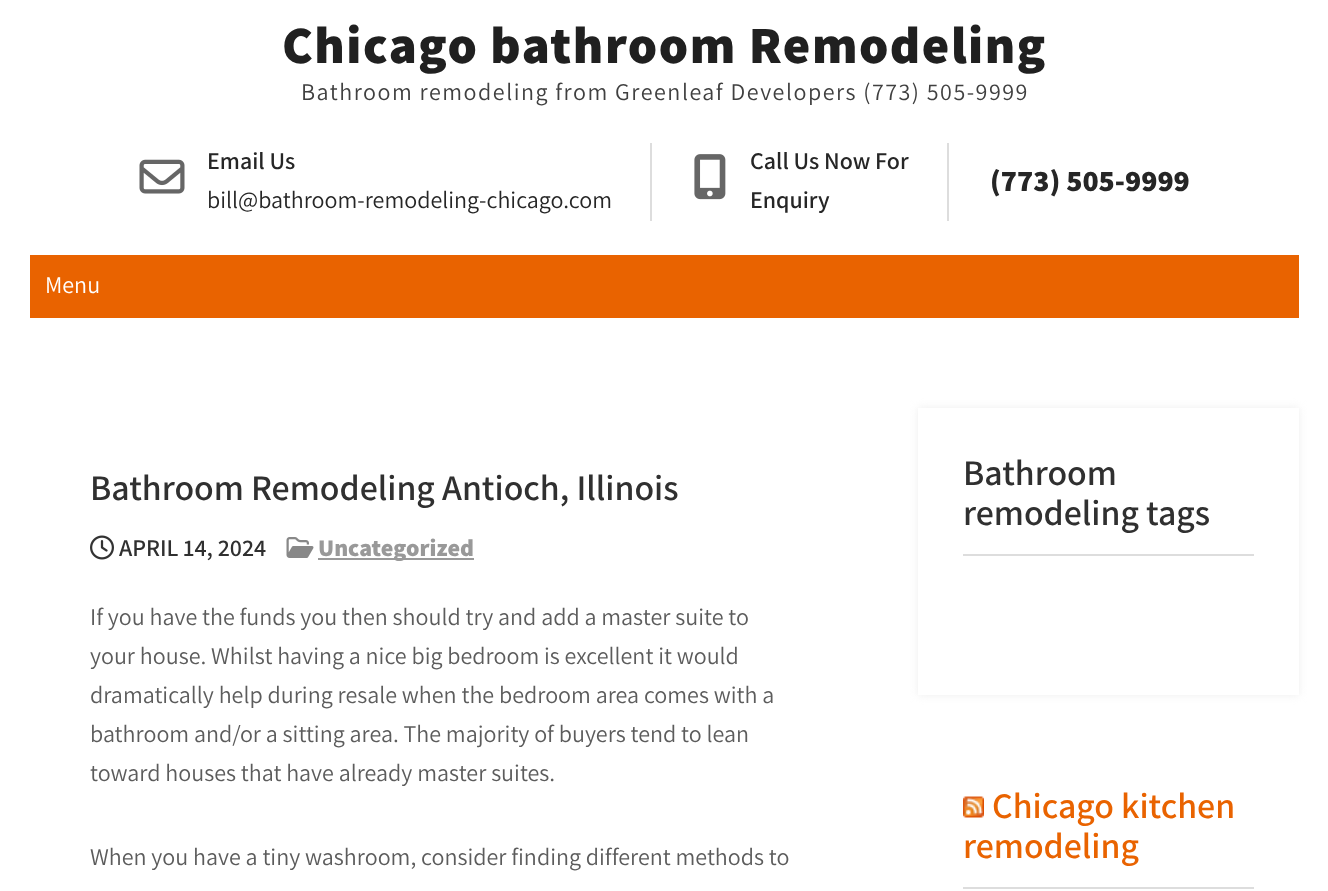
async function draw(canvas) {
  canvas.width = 1328
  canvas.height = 891
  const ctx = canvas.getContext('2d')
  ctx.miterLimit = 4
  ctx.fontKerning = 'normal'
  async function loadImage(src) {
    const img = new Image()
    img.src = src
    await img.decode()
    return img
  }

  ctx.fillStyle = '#fff'
  ctx.fillRect(0, 0, 1328, 891)
  ctx.letterSpacing = '1.5px'
  ctx.font = '800 52.5px Assistant'
  ctx.fillStyle = '#202020'
  ctx.fillText('Chicago bathroom Remodeling', 282, 63)
  ctx.font = '24px Assistant'
  ctx.fillStyle = '#404040'
  ctx.fillText('Bathroom remodeling from Greenleaf Developers (773) 505-9999', 301, 100)
  ctx.fillStyle = '#ddd'
  ctx.fillRect(650, 143, 2, 78)
  ctx.drawImage(await loadImage('image0.png'), 139, 159, 46, 35)
  ctx.letterSpacing = '0px'
  ctx.font = '600 24px Assistant'
  ctx.fillStyle = '#262626'
  ctx.fillText('Email Us', 207, 169)
  ctx.font = '24px Assistant'
  ctx.fillText('bill@bathroom-remodeling-chicago.com', 207, 208)
  ctx.fillStyle = '#ddd'
  ctx.fillRect(947, 143, 2, 78)
  ctx.drawImage(await loadImage('image1.png'), 694, 154, 32, 46)
  ctx.font = '600 24px Assistant'
  ctx.fillStyle = '#262626'
  ctx.fillText('Call Us Now For', 750, 169)
  ctx.fillText('Enquiry', 750, 208)
  ctx.font = '800 30px Assistant'
  ctx.fillText('(773) 505-9999', 990, 191)
  ctx.fillStyle = '#e96300'
  ctx.fillRect(30, 255, 1269, 63)
  ctx.font = '24px Assistant'
  ctx.fillStyle = '#fff'
  ctx.fillText('Menu', 45, 293)
  ctx.font = '600 36px Assistant'
  ctx.fillStyle = '#303030'
  ctx.fillText('Bathroom Remodeling Antioch, Illinois', 90, 500)
  ctx.drawImage(await loadImage('image2.png'), 90, 535, 24, 25)
  ctx.font = '600 24px Assistant'
  ctx.fillText('APRIL 14, 2024', 119, 556)
  ctx.drawImage(await loadImage('image3.png'), 286, 537, 28, 21)
  ctx.fillStyle = '#999'
  ctx.fillRect(318, 558, 156, 2)
  ctx.font = '800 24px Assistant'
  ctx.fillText('Uncategorized', 318, 556)
  ctx.font = '24px Assistant'
  ctx.fillStyle = '#5c5c5c'
  ctx.fillText('If you have the funds you then should try and add a master suite to', 90, 625)
  ctx.fillText('your house. Whilst having a nice big bedroom is excellent it would', 90, 664)
  ctx.fillText('dramatically help during resale when the bedroom area comes with a', 90, 703)
  ctx.fillText('bathroom and/or a sitting area. The majority of buyers tend to lean', 90, 742)
  ctx.fillText('toward houses that have already master suites.', 90, 781)
  ctx.fillText('When you have a tiny washroom, consider finding different methods to', 90, 865)
  ctx.fillStyle = '#eee'
  ctx.filter = 'blur(4px)'
  ctx.beginPath()
  ctx.rect(918, 408, 381, 287)
  ctx.fill()
  ctx.filter = 'none'
  ctx.fillStyle = '#fff'
  ctx.fillRect(918, 408, 381, 287)
  ctx.fillStyle = '#ddd'
  ctx.fillRect(963, 554, 291, 2)
  ctx.font = '600 36px Assistant'
  ctx.fillStyle = '#303030'
  ctx.fillText('Bathroom', 963, 485)
  ctx.fillText('remodeling tags', 963, 525)
  ctx.fillStyle = '#ddd'
  ctx.fillRect(963, 887, 291, 2)
  ctx.drawImage(await loadImage('image4.png'), 963, 796, 21, 22)
  ctx.fillStyle = '#e96300'
  ctx.fillText('Chicago kitchen', 992, 818)
  ctx.fillText('remodeling', 963, 858)
}

draw(document.querySelector('canvas'))
